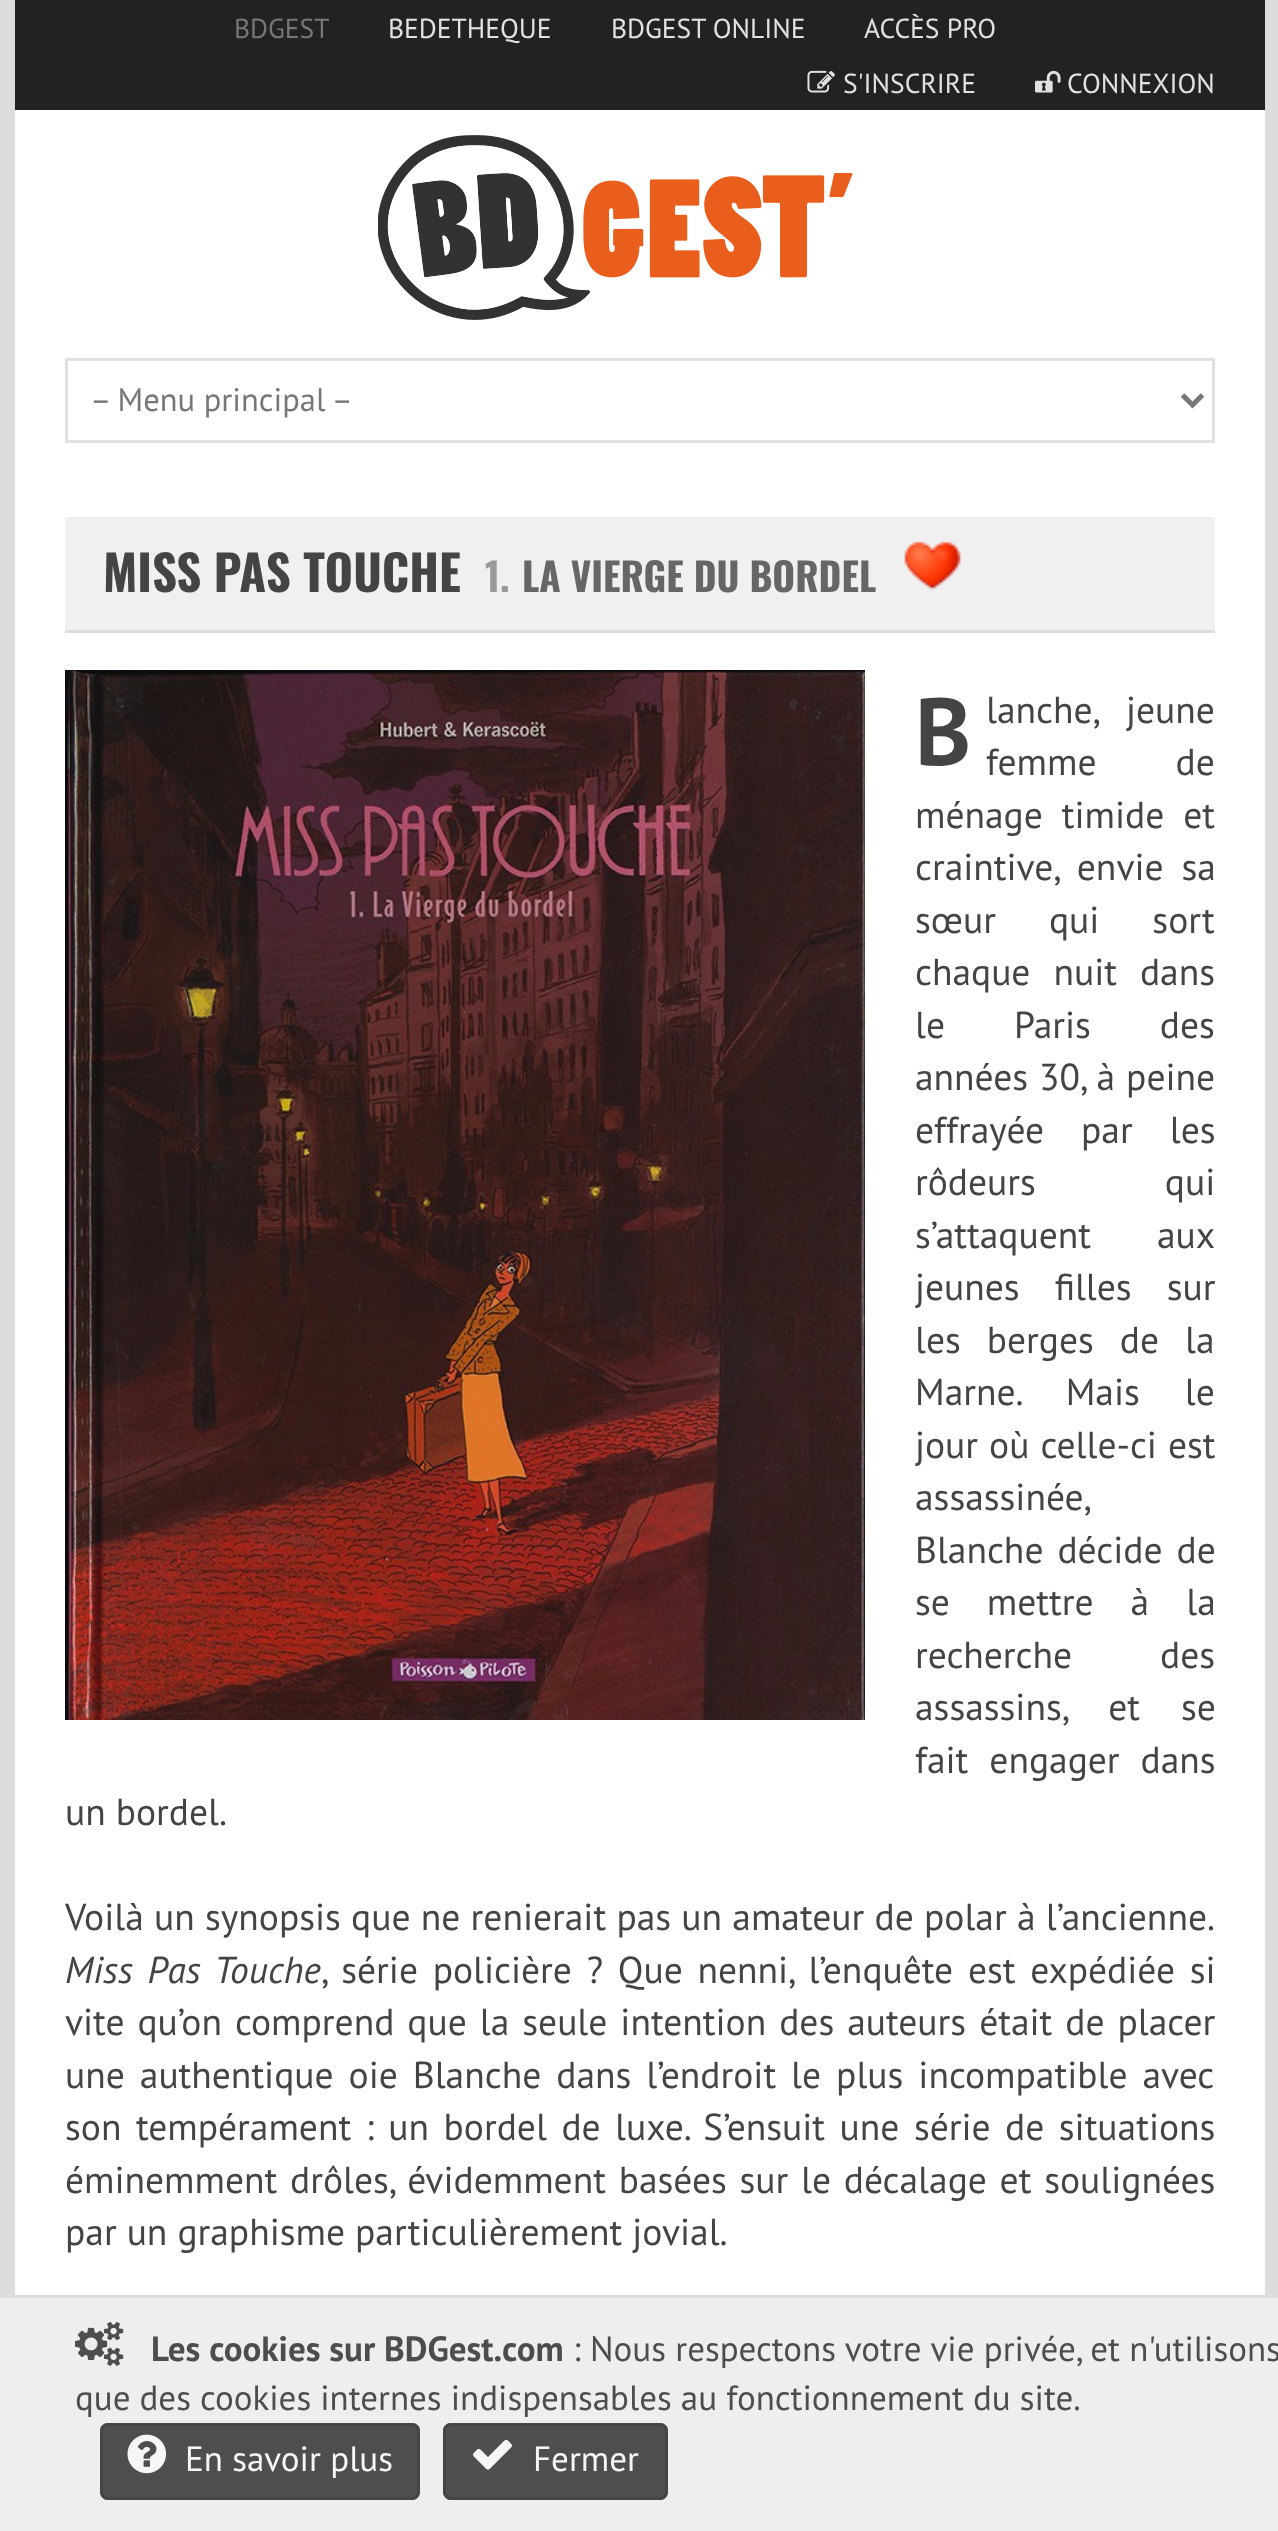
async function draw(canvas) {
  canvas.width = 1278
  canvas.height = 2531
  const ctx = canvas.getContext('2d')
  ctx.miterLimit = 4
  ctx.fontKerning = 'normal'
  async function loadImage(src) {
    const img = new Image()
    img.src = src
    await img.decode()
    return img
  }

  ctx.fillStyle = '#ddd'
  ctx.fillRect(0, 0, 1278, 2531)
  ctx.fillStyle = '#eee'
  ctx.fillRect(0, 2298, 1278, 233)
  ctx.fillStyle = '#fff'
  ctx.fillRect(15, 110, 1250, 2185)
  ctx.fillStyle = '#222'
  ctx.fillRect(15, 0, 1250, 110)
  ctx.font = '27.5px PT Sans'
  ctx.fillStyle = '#777'
  ctx.fillText('BDGEST', 234, 38)
  ctx.fillStyle = '#e1e1e1'
  ctx.fillText('BEDETHEQUE', 388, 38)
  ctx.fillText('BDGEST ONLINE', 611, 38)
  ctx.fillText('ACCÈS PRO', 864, 38)
  ctx.drawImage(await loadImage('image0.png'), 807, 70, 28, 23)
  ctx.fillText('S\'INSCRIRE', 843, 93)
  ctx.drawImage(await loadImage('image1.png'), 1035, 70, 26, 23)
  ctx.fillText('CONNEXION', 1067, 93)
  ctx.drawImage(await loadImage('image2.png'), 378, 135, 475, 185)
  ctx.strokeStyle = '#e1e1e1'
  ctx.lineWidth = 3
  ctx.strokeRect(66.5, 359.5, 1147, 82)
  ctx.beginPath()
  ctx.moveTo(1182.5, 395)
  ctx.lineTo(1192.5, 405)
  ctx.lineTo(1202.5, 395)
  ctx.strokeStyle = '#777'
  ctx.lineWidth = 5
  ctx.stroke()
  ctx.font = '32.5px PT Sans'
  ctx.fillStyle = '#777'
  ctx.fillText('– Menu principal –', 90, 411)
  ctx.fillStyle = '#f0f0f0'
  ctx.fillRect(65, 517, 1150, 113)
  ctx.fillStyle = '#ddd'
  ctx.fillRect(65, 630, 1150, 3)
  ctx.font = 'bold 48.75px Oswald'
  ctx.fillStyle = '#444'
  ctx.fillText('MISS PAS TOUCHE', 103, 592)
  ctx.font = 'bold 39px Oswald'
  ctx.fillStyle = '#999'
  ctx.fillText('1.', 485, 592)
  ctx.fillStyle = '#666'
  ctx.fillText('LA VIERGE DU BORDEL', 522, 592)
  ctx.drawImage(await loadImage('image3.png'), 904, 541, 57, 50)
  ctx.drawImage(await loadImage('image4.png'), 65, 670, 800, 1050)
  ctx.font = 'bold 95px PT Sans'
  ctx.fillStyle = '#444'
  ctx.fillText('B', 915, 765)
  ctx.wordSpacing = '18px'
  ctx.font = '37.5px PT Sans'
  ctx.fillText('lanche, jeune', 986, 723)
  ctx.wordSpacing = '69px'
  ctx.fillText('femme de', 986, 775)
  ctx.wordSpacing = '9px'
  ctx.fillText('ménage timide et', 915, 828)
  ctx.wordSpacing = '8px'
  ctx.fillText('craintive, envie sa', 915, 880)
  ctx.wordSpacing = '43px'
  ctx.fillText('sœur qui sort', 915, 933)
  ctx.wordSpacing = '13px'
  ctx.fillText('chaque nuit dans', 915, 985)
  ctx.wordSpacing = '59px'
  ctx.fillText('le Paris des', 915, 1038)
  ctx.wordSpacing = '1px'
  ctx.fillText('années 30, à peine', 915, 1090)
  ctx.wordSpacing = '27px'
  ctx.fillText('effrayée par les', 915, 1143)
  ctx.wordSpacing = '119px'
  ctx.fillText('rôdeurs qui', 915, 1195)
  ctx.wordSpacing = '56px'
  ctx.fillText('s’attaquent aux', 915, 1248)
  ctx.wordSpacing = '25px'
  ctx.fillText('jeunes filles sur', 915, 1300)
  ctx.wordSpacing = '16px'
  ctx.fillText('les berges de la', 915, 1353)
  ctx.wordSpacing = '35px'
  ctx.fillText('Marne. Mais le', 915, 1405)
  ctx.wordSpacing = '1px'
  ctx.fillText('jour où celle-ci est', 915, 1458)
  ctx.wordSpacing = '0px'
  ctx.fillText('assassinée,', 915, 1510)
  ctx.wordSpacing = '4px'
  ctx.fillText('Blanche décide de', 915, 1563)
  ctx.wordSpacing = '27px'
  ctx.fillText('se mettre à la', 915, 1615)
  ctx.wordSpacing = '78px'
  ctx.fillText('recherche des', 915, 1668)
  ctx.wordSpacing = '31px'
  ctx.fillText('assassins, et se', 915, 1720)
  ctx.wordSpacing = '11px'
  ctx.fillText('fait engager dans', 915, 1773)
  ctx.wordSpacing = '0px'
  ctx.fillText('un bordel.', 65, 1825)
  ctx.wordSpacing = '0.25px'
  ctx.fillText('Voilà un synopsis que ne renierait pas un amateur de polar à l’ancienne.', 65, 1930)
  ctx.wordSpacing = '4.75px'
  ctx.font = 'italic 37.5px PT Sans'
  ctx.fillText('Miss Pas Touche', 65, 1983)
  ctx.font = '37.5px PT Sans'
  ctx.fillText(', série policière ? Que nenni, l’enquête est expédiée si', 321, 1983)
  ctx.wordSpacing = '3px'
  ctx.fillText('vite qu’on comprend que la seule intention des auteurs était de placer', 65, 2035)
  ctx.wordSpacing = '5px'
  ctx.fillText('une authentique oie Blanche dans l’endroit le plus incompatible avec', 65, 2088)
  ctx.wordSpacing = '4.5px'
  ctx.fillText('son tempérament : un bordel de luxe. S’ensuit une série de situations', 65, 2140)
  ctx.wordSpacing = '2.75px'
  ctx.fillText('éminemment drôles, évidemment basées sur le décalage et soulignées', 65, 2193)
  ctx.wordSpacing = '0px'
  ctx.fillText('par un graphisme particulièrement jovial.', 65, 2245)
  ctx.drawImage(await loadImage('image5.png'), 75, 2321, 49, 45)
  ctx.font = 'bold 35px PT Sans'
  ctx.fillStyle = '#4d4d4d'
  ctx.fillText('Les cookies sur BDGest.com', 151, 2361)
  ctx.font = '35px PT Sans'
  ctx.fillText(':', 573, 2361)
  ctx.fillText('Nous respectons votre vie privée, et n\'utilisons', 590, 2361)
  ctx.wordSpacing = '-0.25px'
  ctx.fillText('que des cookies internes indispensables au fonctionnement du site.', 75, 2410)
  ctx.fillStyle = '#444444f2'
  ctx.beginPath()
  ctx.roundRect(100, 2423, 320, 77, 8)
  ctx.fill()
  ctx.beginPath()
  ctx.roundRect(101.5, 2424.5, 317, 74, 6.5)
  ctx.strokeStyle = '#444444f2'
  ctx.lineWidth = 3
  ctx.stroke()
  ctx.drawImage(await loadImage('image6.png'), 127, 2434, 40, 40)
  ctx.wordSpacing = '0px'
  ctx.fillStyle = '#f6f6f6'
  ctx.fillText('En savoir plus', 185, 2471)
  ctx.fillStyle = '#444444f2'
  ctx.beginPath()
  ctx.roundRect(443, 2423, 225, 77, 8)
  ctx.fill()
  ctx.beginPath()
  ctx.roundRect(444.5, 2424.5, 222, 74, 6.5)
  ctx.stroke()
  ctx.drawImage(await loadImage('image7.png'), 473, 2439, 39, 31)
  ctx.fillStyle = '#f6f6f6'
  ctx.fillText('Fermer', 533, 2471)
}

draw(document.querySelector('canvas'))
